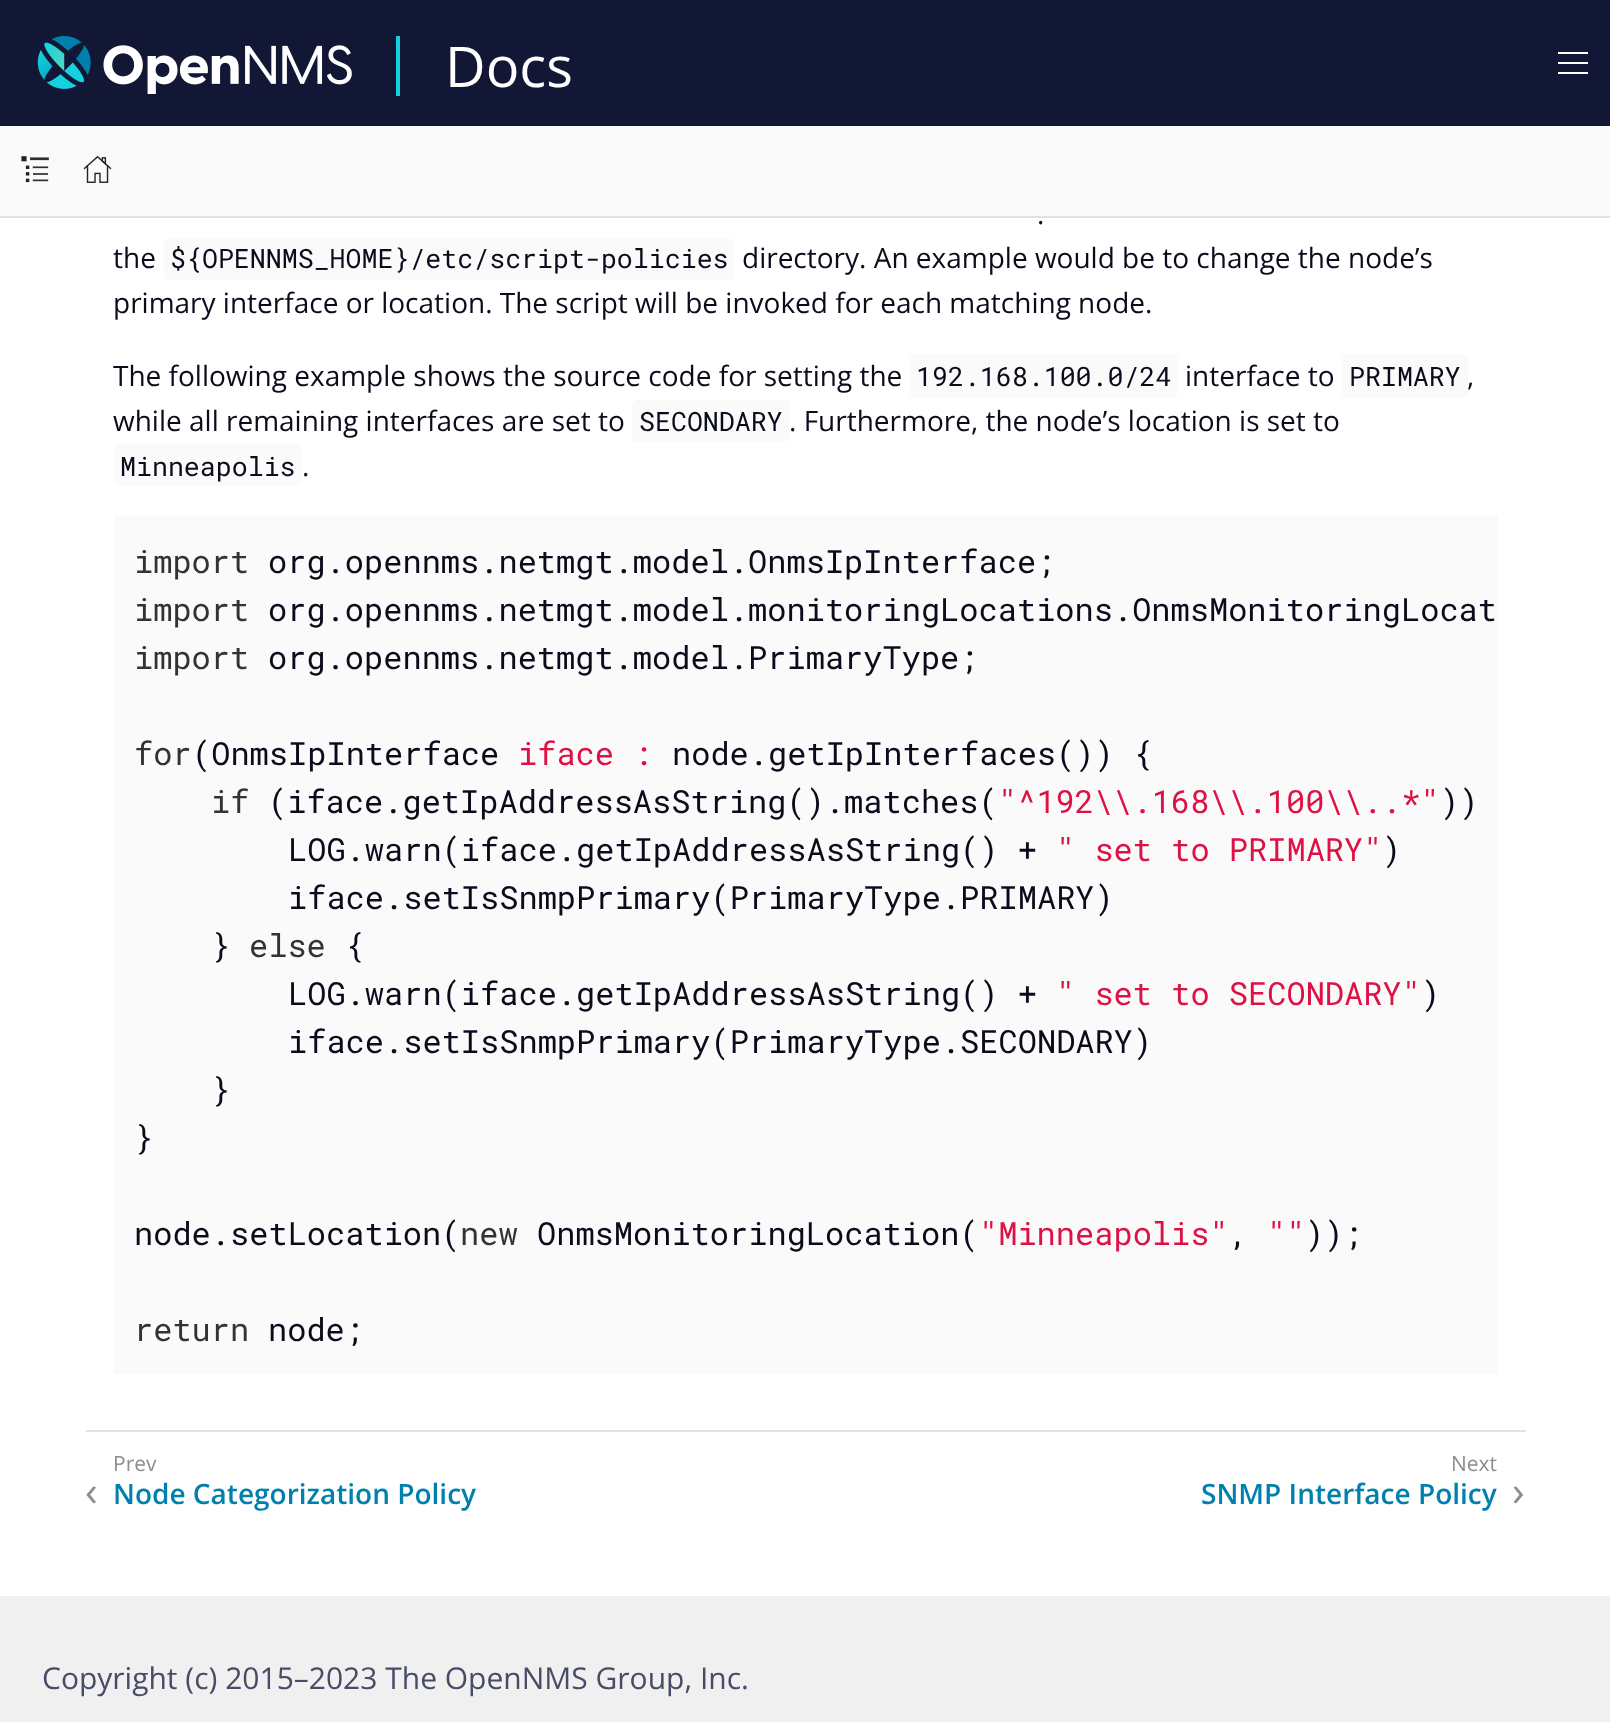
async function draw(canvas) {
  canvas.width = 1610
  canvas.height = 1722
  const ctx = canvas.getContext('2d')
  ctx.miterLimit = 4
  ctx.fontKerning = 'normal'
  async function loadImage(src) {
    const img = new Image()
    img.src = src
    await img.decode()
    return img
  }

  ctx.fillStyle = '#fff'
  ctx.fillRect(0, 0, 1610, 1722)
  ctx.fillStyle = '#131736'
  ctx.fillRect(0, 0, 1610, 126)
  ctx.drawImage(await loadImage('image0.png'), 37, 36, 315, 58)
  ctx.fillStyle = '#14d1df'
  ctx.fillRect(396, 36, 4, 60)
  ctx.font = '56px Open Sans'
  ctx.fillStyle = '#fff'
  ctx.fillText('Docs', 445, 87)
  ctx.fillRect(1558, 52, 30, 2)
  ctx.fillRect(1558, 62, 30, 2)
  ctx.fillRect(1558, 72, 30, 2)
  ctx.fillStyle = '#e1e1e1'
  ctx.fillRect(0, 216, 1610, 2)
  ctx.fillStyle = '#fafafa'
  ctx.fillRect(0, 126, 1610, 90)
  ctx.drawImage(await loadImage('image1.png'), 21, 156, 28, 27)
  ctx.drawImage(await loadImage('image2.png'), 83, 155, 29, 28)
  ctx.font = '28px Open Sans'
  ctx.fillStyle = '#0a0c1b'
  ctx.fillText('.', 1037, 224)
  ctx.fillText('the', 113, 268)
  ctx.fillStyle = '#fafafa'
  ctx.beginPath()
  ctx.roundRect(164, 238, 570, 42, 6)
  ctx.fill()
  ctx.font = '26.6px Roboto Mono'
  ctx.fillStyle = '#0a0c1b'
  ctx.fillText('${OPENNMS_HOME}/etc/script-policies', 170, 268)
  ctx.font = '28px Open Sans'
  ctx.fillText('directory. An example would be to change the node’s', 742, 268)
  ctx.fillText('primary interface or location. The script will be invoked for each matching node.', 113, 313)
  ctx.fillText('The following example shows the source code for setting the', 113, 386)
  ctx.fillStyle = '#fafafa'
  ctx.beginPath()
  ctx.roundRect(910, 354, 268, 44, 6)
  ctx.fill()
  ctx.font = '26.6px Roboto Mono'
  ctx.fillStyle = '#0a0c1b'
  ctx.fillText('192.168.100.0/24', 916, 386)
  ctx.font = '28px Open Sans'
  ctx.fillText('interface to', 1185, 386)
  ctx.fillStyle = '#fafafa'
  ctx.beginPath()
  ctx.roundRect(1342, 354, 126, 44, 6)
  ctx.fill()
  ctx.font = '26.6px Roboto Mono'
  ctx.fillStyle = '#0a0c1b'
  ctx.fillText('PRIMARY', 1349, 386)
  ctx.font = '28px Open Sans'
  ctx.fillText(',', 1467, 386)
  ctx.fillText('while all remaining interfaces are set to', 113, 431)
  ctx.fillStyle = '#fafafa'
  ctx.beginPath()
  ctx.roundRect(632, 400, 158, 42, 6)
  ctx.fill()
  ctx.font = '26.6px Roboto Mono'
  ctx.fillStyle = '#0a0c1b'
  ctx.fillText('SECONDARY', 639, 431)
  ctx.font = '28px Open Sans'
  ctx.fillText('. Furthermore, the node’s location is set to', 789, 431)
  ctx.fillStyle = '#fafafa'
  ctx.beginPath()
  ctx.roundRect(114, 444, 188, 42, 6)
  ctx.fill()
  ctx.font = '26.6px Roboto Mono'
  ctx.fillStyle = '#0a0c1b'
  ctx.fillText('Minneapolis', 120, 476)
  ctx.font = '28px Open Sans'
  ctx.fillText('.', 302, 476)
  ctx.fillStyle = '#fafafa'
  ctx.fillRect(114, 516, 1384, 858)
  ctx.font = '32px Roboto Mono'
  ctx.fillStyle = '#333'
  ctx.fillText('import', 134, 573)
  ctx.fillStyle = '#0a0c1b'
  ctx.fillText('org.opennms.netmgt.model.OnmsIpInterface;', 268, 573)
  ctx.fillStyle = '#333'
  ctx.fillText('import', 134, 621)
  ctx.fillStyle = '#0a0c1b'
  ctx.fillText('org.opennms.netmgt.model.monitoringLocations.OnmsMonitoringLocat', 268, 621)
  ctx.fillStyle = '#333'
  ctx.fillText('import', 134, 669)
  ctx.fillStyle = '#0a0c1b'
  ctx.fillText('org.opennms.netmgt.model.PrimaryType;', 268, 669)
  ctx.fillStyle = '#333'
  ctx.fillText('for', 134, 765)
  ctx.fillStyle = '#0a0c1b'
  ctx.fillText('(OnmsIpInterface', 192, 765)
  ctx.fillStyle = '#d14'
  ctx.fillText('iface :', 518, 765)
  ctx.fillStyle = '#0a0c1b'
  ctx.fillText('node.getIpInterfaces()) {', 672, 765)
  ctx.fillStyle = '#333'
  ctx.fillText('if', 211, 813)
  ctx.fillStyle = '#0a0c1b'
  ctx.fillText('(iface.getIpAddressAsString().matches(', 268, 813)
  ctx.fillStyle = '#d14'
  ctx.fillText('"^192\\\\.168\\\\.100\\\\..*"', 998, 813)
  ctx.fillStyle = '#0a0c1b'
  ctx.fillText('))', 1440, 813)
  ctx.fillText('LOG.warn(iface.getIpAddressAsString() +', 288, 861)
  ctx.fillStyle = '#d14'
  ctx.fillText('" set to PRIMARY"', 1056, 861)
  ctx.fillStyle = '#0a0c1b'
  ctx.fillText(')', 1382, 861)
  ctx.fillText('iface.setIsSnmpPrimary(PrimaryType.PRIMARY)', 288, 909)
  ctx.fillText('}', 211, 957)
  ctx.fillStyle = '#333'
  ctx.fillText('else', 249, 957)
  ctx.fillStyle = '#0a0c1b'
  ctx.fillText('{', 345, 957)
  ctx.fillText('LOG.warn(iface.getIpAddressAsString() +', 288, 1005)
  ctx.fillStyle = '#d14'
  ctx.fillText('" set to SECONDARY"', 1056, 1005)
  ctx.fillStyle = '#0a0c1b'
  ctx.fillText(')', 1421, 1005)
  ctx.fillText('iface.setIsSnmpPrimary(PrimaryType.SECONDARY)', 288, 1053)
  ctx.fillText('}', 211, 1101)
  ctx.fillText('}', 134, 1149)
  ctx.fillText('node.setLocation(', 134, 1245)
  ctx.fillText('OnmsMonitoringLocation(', 537, 1245)
  ctx.fillStyle = '#d14'
  ctx.fillText('"Minneapolis"', 979, 1245)
  ctx.fillText('""', 1267, 1245)
  ctx.fillStyle = '#0a0c1b'
  ctx.fillText('));', 1305, 1245)
  ctx.fillStyle = '#333'
  ctx.fillText('new', 460, 1245)
  ctx.fillStyle = '#0a0c1b'
  ctx.fillText(',', 1229, 1245)
  ctx.fillStyle = '#333'
  ctx.fillText('return', 134, 1341)
  ctx.fillStyle = '#0a0c1b'
  ctx.fillText('node;', 268, 1341)
  ctx.fillStyle = '#e1e1e1'
  ctx.fillRect(86, 1430, 1440, 2)
  ctx.font = '21px Open Sans'
  ctx.fillStyle = '#8e8e8e'
  ctx.fillText('Prev', 113, 1471)
  ctx.font = '42px Open Sans'
  ctx.fillText('‹', 85, 1506)
  ctx.font = '600 28px Open Sans'
  ctx.fillStyle = '#0081ad'
  ctx.fillText('Node Categorization Policy', 113, 1504)
  ctx.font = '21px Open Sans'
  ctx.fillStyle = '#8e8e8e'
  ctx.fillText('Next', 1451, 1471)
  ctx.font = '600 28px Open Sans'
  ctx.fillStyle = '#0081ad'
  ctx.fillText('SNMP Interface Policy', 1201, 1504)
  ctx.font = '42px Open Sans'
  ctx.fillStyle = '#8e8e8e'
  ctx.fillText('›', 1512, 1506)
  ctx.fillStyle = '#f0f0f0'
  ctx.fillRect(0, 1596, 1610, 126)
  ctx.font = '30px Open Sans'
  ctx.fillStyle = '#494c67'
  ctx.fillText('Copyright (c) 2015–2023 The OpenNMS Group, Inc.', 42, 1689)
}

draw(document.querySelector('canvas'))
